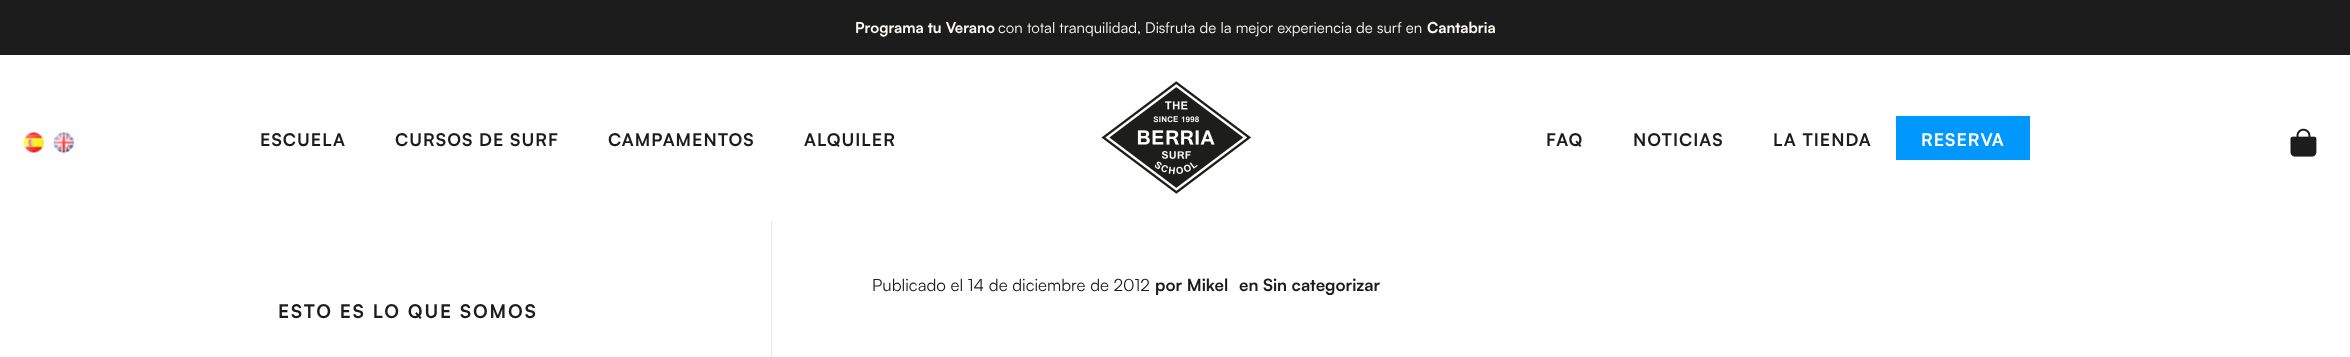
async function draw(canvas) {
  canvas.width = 2350
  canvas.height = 357
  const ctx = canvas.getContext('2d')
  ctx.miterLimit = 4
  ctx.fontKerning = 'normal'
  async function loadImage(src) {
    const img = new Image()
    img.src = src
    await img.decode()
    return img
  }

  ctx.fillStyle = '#fff'
  ctx.fillRect(0, 0, 2350, 357)
  ctx.fillStyle = '#1c1c1c'
  ctx.fillRect(0, 0, 2350, 55)
  ctx.font = 'bold 15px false'
  ctx.fillStyle = '#fcfaf2'
  ctx.fillText('Programa tu Verano', 855, 33)
  ctx.font = '15px Satoshi'
  ctx.fillText('con total tranquilidad, Disfruta de la mejor experiencia de surf en', 998, 33)
  ctx.font = 'bold 15px false'
  ctx.fillText('Cantabria', 1427, 33)
  ctx.drawImage(await loadImage('image0.png'), 23, 132, 21, 21)
  ctx.drawImage(await loadImage('image1.png'), 53, 132, 21, 21)
  ctx.letterSpacing = '1px'
  ctx.font = 'bold 17.5px false'
  ctx.fillStyle = '#1c1c1c'
  ctx.fillText('ESCUELA', 260, 146)
  ctx.fillText('CURSOS DE SURF', 395, 146)
  ctx.fillText('CAMPAMENTOS', 608, 146)
  ctx.fillText('ALQUILER', 804, 146)
  ctx.drawImage(await loadImage('image2.png'), 1101, 81, 150, 113)
  ctx.fillText('FAQ', 1546, 146)
  ctx.fillText('NOTICIAS', 1633, 146)
  ctx.fillText('LA TIENDA', 1773, 146)
  ctx.fillStyle = '#0098ff'
  ctx.fillRect(1896, 116, 134, 44)
  ctx.fillStyle = '#fff'
  ctx.fillText('RESERVA', 1921, 146)
  ctx.drawImage(await loadImage('image3.png'), 2290, 128, 27, 29)
  ctx.letterSpacing = '0px'
  ctx.font = '16.9px Satoshi'
  ctx.fillStyle = '#1c1c1c'
  ctx.fillText('Publicado el 14 de diciembre de 2012', 872, 291)
  ctx.font = 'bold 16.9px false'
  ctx.fillText('por Mikel', 1155, 291)
  ctx.fillText('en Sin categorizar', 1239, 291)
  ctx.letterSpacing = '1.9px'
  ctx.font = 'bold 18.75px false'
  ctx.fillText('ESTO ES LO QUE SOMOS', 278, 318)
  ctx.fillStyle = '#e6e6e6'
  ctx.fillRect(771, 221, 1, 136)
}

draw(document.querySelector('canvas'))
